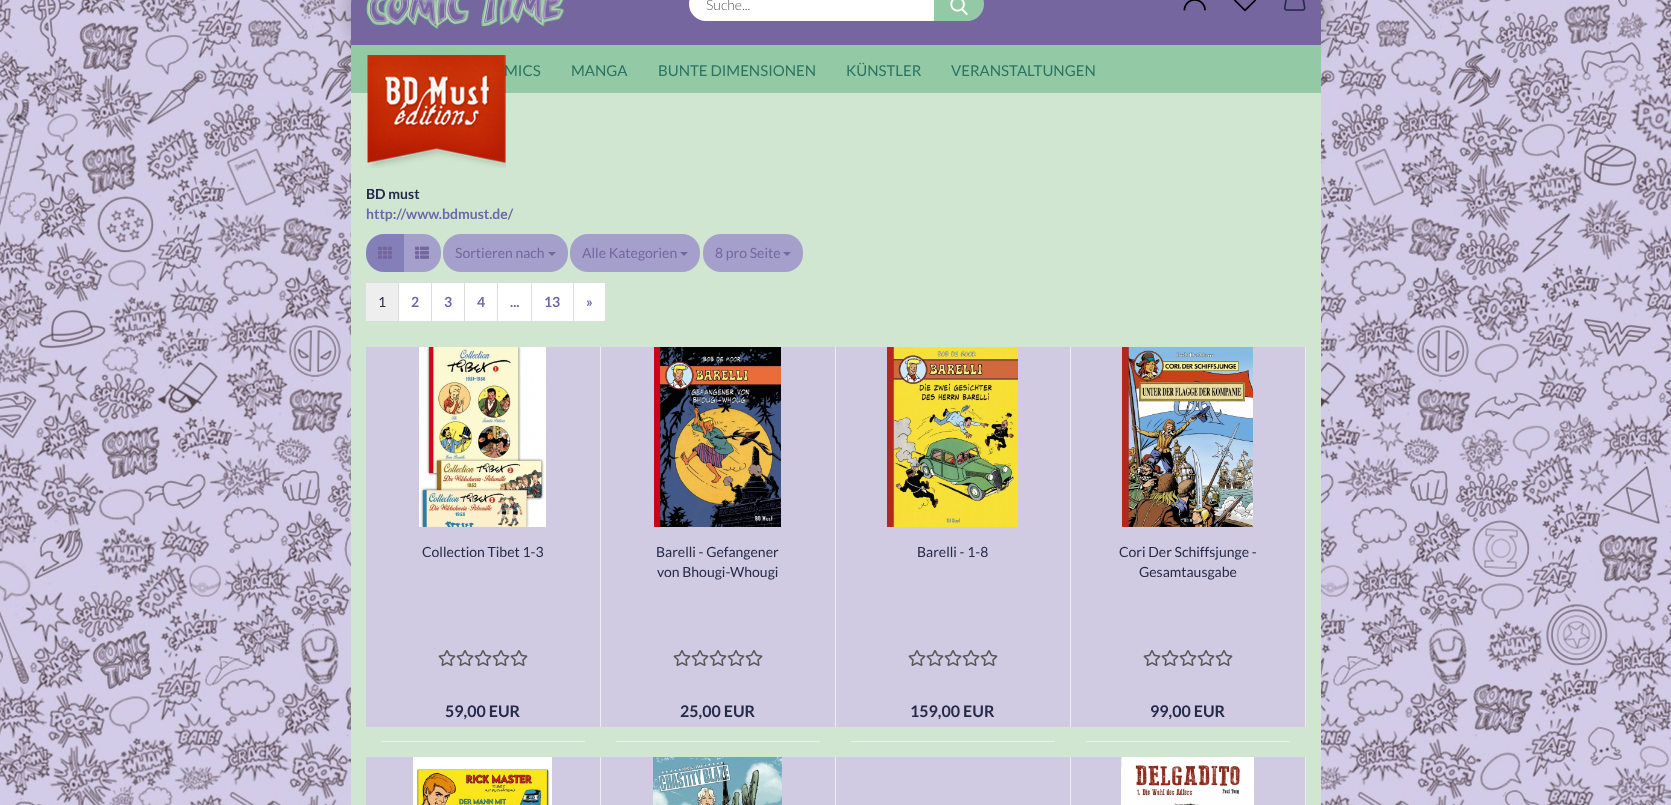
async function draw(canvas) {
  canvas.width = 1671
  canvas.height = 805
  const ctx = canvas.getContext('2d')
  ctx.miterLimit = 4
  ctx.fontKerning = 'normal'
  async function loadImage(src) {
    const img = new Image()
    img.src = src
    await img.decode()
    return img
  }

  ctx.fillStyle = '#fff'
  ctx.fillRect(0, 0, 1671, 805)
  ctx.drawImage(await loadImage('image0.png'), 0, 0, 1671, 805)
  ctx.fillStyle = '#d0e6d0'
  ctx.beginPath()
  ctx.roundRect(351, -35, 970, 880, 40)
  ctx.fill()
  ctx.fillStyle = '#0000004d'
  ctx.filter = 'blur(12.5px)'
  ctx.beginPath()
  ctx.roundRect(351, -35, 970, 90, 40)
  ctx.fill()
  ctx.filter = 'none'
  ctx.fillStyle = '#76669f'
  ctx.beginPath()
  ctx.moveTo(391, -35)
  ctx.lineTo(1281, -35)
  ctx.bezierCurveTo(1303, -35, 1321, -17, 1321, 5)
  ctx.lineTo(1321, 53)
  ctx.bezierCurveTo(1321, 54, 1320, 55, 1319, 55)
  ctx.lineTo(353, 55)
  ctx.bezierCurveTo(352, 55, 351, 54, 351, 53)
  ctx.lineTo(351, 5)
  ctx.bezierCurveTo(351, -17, 369, -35, 391, -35)
  ctx.closePath()
  ctx.fill()
  ctx.drawImage(await loadImage('image1.png'), 366, 0, 198, 29)
  ctx.fillStyle = '#fff'
  ctx.beginPath()
  ctx.roundRect(690, -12, 291, 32, 16)
  ctx.fill()
  ctx.strokeStyle = '#fff'
  ctx.lineWidth = 2
  ctx.stroke()
  ctx.font = '300 14px Lato'
  ctx.fillStyle = '#595959'
  ctx.fillText('Suche...', 706, 10)
  ctx.fillStyle = '#93c9a4'
  ctx.beginPath()
  ctx.moveTo(934, -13)
  ctx.lineTo(967, -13)
  ctx.bezierCurveTo(976.5, -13, 984, -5.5, 984, 4)
  ctx.bezierCurveTo(984, 13.5, 976.5, 21, 967, 21)
  ctx.lineTo(934, 21)
  ctx.closePath()
  ctx.fill()
  ctx.drawImage(await loadImage('image2.png'), 950, 0, 18, 15)
  ctx.drawImage(await loadImage('image3.png'), 1183, 0, 23, 11)
  ctx.drawImage(await loadImage('image4.png'), 1233, 0, 24, 12)
  ctx.drawImage(await loadImage('image5.png'), 1284, 0, 22, 11)
  ctx.fillRect(351, 45, 970, 48)
  ctx.font = '15px Lato'
  ctx.fillStyle = '#2b7463'
  ctx.fillText('MICS', 504, 76)
  ctx.fillText('MANGA', 571, 76)
  ctx.fillText('BUNTE DIMENSIONEN', 658, 76)
  ctx.fillText('KÜNSTLER', 846, 76)
  ctx.fillText('VERANSTALTUNGEN', 951, 76)
  ctx.drawImage(await loadImage('image6.png'), 367, 55, 139, 113)
  ctx.font = 'bold 14px Lato'
  ctx.fillStyle = '#242a4a'
  ctx.fillText('BD must', 366, 199)
  ctx.fillStyle = '#6b68ab'
  ctx.fillText('http://www.bdmust.de/', 366, 219)
  ctx.fillStyle = '#a4a0cb'
  ctx.beginPath()
  ctx.roundRect(403, 234, 38, 38, [0, 18, 18, 0])
  ctx.fill()
  ctx.fillStyle = '#847fb9'
  ctx.beginPath()
  ctx.roundRect(366, 234, 38, 38, [18, 0, 0, 18])
  ctx.fill()
  ctx.drawImage(await loadImage('image7.png'), 378, 246, 14, 13)
  ctx.drawImage(await loadImage('image8.png'), 415, 246, 14, 13)
  ctx.fillStyle = '#a4a0cb'
  ctx.beginPath()
  ctx.roundRect(443, 234, 125, 38, 18)
  ctx.fill()
  ctx.font = '14px Lato'
  ctx.fillStyle = '#76669f'
  ctx.fillText('Sortieren nach', 455, 258)
  ctx.beginPath()
  ctx.moveTo(548, 252)
  ctx.lineTo(556, 252)
  ctx.lineTo(552, 256)
  ctx.closePath()
  ctx.fill()
  ctx.fillStyle = '#a4a0cb'
  ctx.beginPath()
  ctx.roundRect(570, 234, 130, 38, 18)
  ctx.fill()
  ctx.fillStyle = '#76669f'
  ctx.fillText('Alle Kategorien', 582, 258)
  ctx.beginPath()
  ctx.moveTo(680, 252)
  ctx.lineTo(688, 252)
  ctx.lineTo(684, 256)
  ctx.closePath()
  ctx.fill()
  ctx.fillStyle = '#a4a0cb'
  ctx.beginPath()
  ctx.roundRect(703, 234, 100, 38, 18)
  ctx.fill()
  ctx.fillStyle = '#76669f'
  ctx.fillText('8 pro Seite', 715, 258)
  ctx.beginPath()
  ctx.moveTo(783, 252)
  ctx.lineTo(791, 252)
  ctx.lineTo(787, 256)
  ctx.closePath()
  ctx.fill()
  ctx.fillStyle = '#eee'
  ctx.beginPath()
  ctx.rect(365.5, 282.5, 33, 39)
  ctx.fill()
  ctx.strokeStyle = '#ddd'
  ctx.lineWidth = 1
  ctx.stroke()
  ctx.fillStyle = '#242a4a'
  ctx.fillText('1', 378, 307)
  ctx.fillStyle = '#fff'
  ctx.beginPath()
  ctx.rect(398.5, 282.5, 33, 39)
  ctx.fill()
  ctx.stroke()
  ctx.font = 'bold 14px Lato'
  ctx.fillStyle = '#6b68ab'
  ctx.fillText('2', 411, 307)
  ctx.fillStyle = '#fff'
  ctx.beginPath()
  ctx.rect(431.5, 282.5, 33, 39)
  ctx.fill()
  ctx.stroke()
  ctx.fillStyle = '#6b68ab'
  ctx.fillText('3', 444, 307)
  ctx.fillStyle = '#fff'
  ctx.beginPath()
  ctx.rect(464.5, 282.5, 33, 39)
  ctx.fill()
  ctx.stroke()
  ctx.fillStyle = '#6b68ab'
  ctx.fillText('4', 477, 307)
  ctx.fillStyle = '#fff'
  ctx.beginPath()
  ctx.rect(497.5, 282.5, 34, 39)
  ctx.fill()
  ctx.stroke()
  ctx.fillStyle = '#6b68ab'
  ctx.fillText('...', 510, 307)
  ctx.fillStyle = '#fff'
  ctx.beginPath()
  ctx.rect(531.5, 282.5, 42, 39)
  ctx.fill()
  ctx.stroke()
  ctx.fillStyle = '#6b68ab'
  ctx.fillText('13', 544, 307)
  ctx.fillStyle = '#fff'
  ctx.beginPath()
  ctx.roundRect(573.5, 282.5, 32, 39, [0, 1.5, 1.5, 0])
  ctx.fill()
  ctx.stroke()
  ctx.fillStyle = '#6b68ab'
  ctx.fillText('»', 586, 307)
  ctx.fillStyle = '#d0cae2'
  ctx.fillRect(366, 347, 234, 380)
  ctx.fillStyle = '#eee'
  ctx.fillRect(600, 347, 1, 380)
  ctx.fillRect(381, 741, 204, 1)
  ctx.drawImage(await loadImage('image9.png'), 419, 347, 127, 180)
  ctx.font = '14px Lato'
  ctx.fillStyle = '#242a4a'
  ctx.fillText('Collection Tibet 1-3', 422, 557)
  ctx.drawImage(await loadImage('image10.png'), 438, 650, 18, 16)
  ctx.drawImage(await loadImage('image10.png'), 456, 650, 18, 16)
  ctx.drawImage(await loadImage('image10.png'), 474, 650, 18, 16)
  ctx.drawImage(await loadImage('image10.png'), 492, 650, 18, 16)
  ctx.drawImage(await loadImage('image10.png'), 510, 650, 18, 16)
  ctx.font = 'bold 16px Lato'
  ctx.fillText('59,00 EUR', 445, 717)
  ctx.fillStyle = '#d0cae2'
  ctx.fillRect(601, 347, 234, 380)
  ctx.fillStyle = '#eee'
  ctx.fillRect(835, 347, 1, 380)
  ctx.fillRect(616, 741, 204, 1)
  ctx.drawImage(await loadImage('image11.png'), 654, 347, 127, 180)
  ctx.font = '14px Lato'
  ctx.fillStyle = '#242a4a'
  ctx.fillText('Barelli - Gefangener', 656, 557)
  ctx.fillText('von Bhougi-Whougi', 657, 577)
  ctx.drawImage(await loadImage('image10.png'), 673, 650, 18, 16)
  ctx.drawImage(await loadImage('image10.png'), 691, 650, 18, 16)
  ctx.drawImage(await loadImage('image10.png'), 709, 650, 18, 16)
  ctx.drawImage(await loadImage('image10.png'), 727, 650, 18, 16)
  ctx.drawImage(await loadImage('image10.png'), 745, 650, 18, 16)
  ctx.font = 'bold 16px Lato'
  ctx.fillText('25,00 EUR', 680, 717)
  ctx.fillStyle = '#d0cae2'
  ctx.fillRect(836, 347, 234, 380)
  ctx.fillStyle = '#eee'
  ctx.fillRect(1070, 347, 1, 380)
  ctx.fillRect(851, 741, 204, 1)
  ctx.drawImage(await loadImage('image12.png'), 887, 347, 131, 180)
  ctx.font = '14px Lato'
  ctx.fillStyle = '#242a4a'
  ctx.fillText('Barelli - 1-8', 917, 557)
  ctx.drawImage(await loadImage('image10.png'), 908, 650, 18, 16)
  ctx.drawImage(await loadImage('image10.png'), 926, 650, 18, 16)
  ctx.drawImage(await loadImage('image10.png'), 944, 650, 18, 16)
  ctx.drawImage(await loadImage('image10.png'), 962, 650, 18, 16)
  ctx.drawImage(await loadImage('image10.png'), 980, 650, 18, 16)
  ctx.font = 'bold 16px Lato'
  ctx.fillText('159,00 EUR', 910, 717)
  ctx.fillStyle = '#d0cae2'
  ctx.fillRect(1071, 347, 234, 380)
  ctx.fillStyle = '#eee'
  ctx.fillRect(1305, 347, 1, 380)
  ctx.fillRect(1086, 741, 204, 1)
  ctx.drawImage(await loadImage('image13.png'), 1122, 347, 131, 180)
  ctx.font = '14px Lato'
  ctx.fillStyle = '#242a4a'
  ctx.fillText('Cori Der Schiffsjunge -', 1119, 557)
  ctx.fillText('Gesamtausgabe', 1139, 577)
  ctx.drawImage(await loadImage('image10.png'), 1143, 650, 18, 16)
  ctx.drawImage(await loadImage('image10.png'), 1161, 650, 18, 16)
  ctx.drawImage(await loadImage('image10.png'), 1179, 650, 18, 16)
  ctx.drawImage(await loadImage('image10.png'), 1197, 650, 18, 16)
  ctx.drawImage(await loadImage('image10.png'), 1215, 650, 18, 16)
  ctx.font = 'bold 16px Lato'
  ctx.fillText('99,00 EUR', 1150, 717)
  ctx.fillStyle = '#d0cae2'
  ctx.fillRect(366, 757, 234, 48)
  ctx.fillStyle = '#eee'
  ctx.fillRect(600, 757, 1, 48)
  ctx.drawImage(await loadImage('image14.png'), 413, 757, 139, 48)
  ctx.fillStyle = '#d0cae2'
  ctx.fillRect(601, 757, 234, 48)
  ctx.fillStyle = '#eee'
  ctx.fillRect(835, 757, 1, 48)
  ctx.drawImage(await loadImage('image15.png'), 653, 757, 129, 48)
  ctx.fillStyle = '#d0cae2'
  ctx.fillRect(836, 757, 234, 48)
  ctx.fillStyle = '#eee'
  ctx.fillRect(1070, 757, 1, 48)
  ctx.fillStyle = '#d0cae2'
  ctx.fillRect(1071, 757, 234, 48)
  ctx.fillStyle = '#eee'
  ctx.fillRect(1305, 757, 1, 48)
  ctx.drawImage(await loadImage('image16.png'), 1121, 757, 133, 48)
}

draw(document.querySelector('canvas'))
